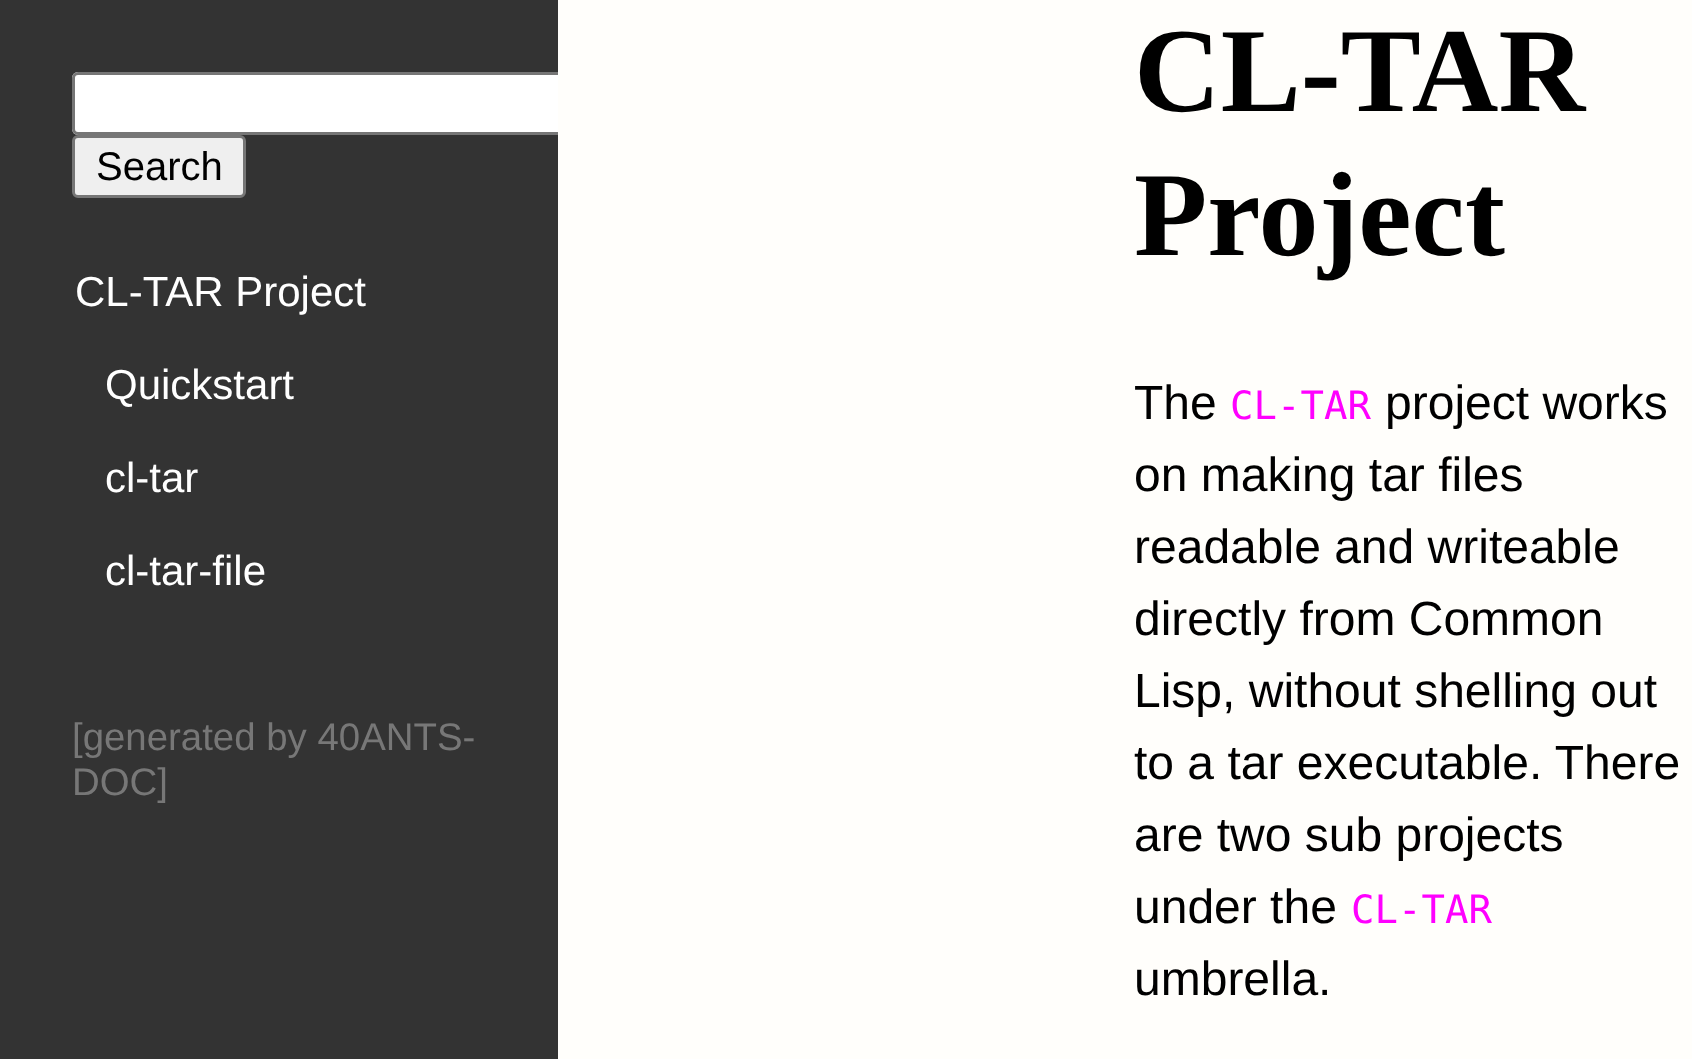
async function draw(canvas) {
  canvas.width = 1692
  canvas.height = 1059
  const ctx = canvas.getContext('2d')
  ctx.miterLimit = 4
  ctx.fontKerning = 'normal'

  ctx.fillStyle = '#fffefb'
  ctx.fillRect(0, 0, 1692, 1059)
  ctx.fillStyle = '#333'
  ctx.fillRect(0, 0, 558, 1059)
  ctx.fillStyle = '#fff'
  ctx.beginPath()
  ctx.roundRect(72, 72, 486, 63, [6, 0, 0, 6])
  ctx.fill()
  ctx.save()
  ctx.beginPath()
  ctx.rect(0, 0, 558, 1059)
  ctx.clip()
  ctx.beginPath()
  ctx.roundRect(73.5, 73.5, 552, 60, 4.5)
  ctx.strokeStyle = '#767676'
  ctx.lineWidth = 3
  ctx.stroke()
  ctx.restore()
  ctx.fillStyle = '#efefef'
  ctx.beginPath()
  ctx.roundRect(73.5, 136.5, 171, 60, 4.5)
  ctx.fill()
  ctx.strokeStyle = '#767676'
  ctx.lineWidth = 3
  ctx.stroke()
  ctx.font = '40px Liberation Sans'
  ctx.fillStyle = '#000'
  ctx.fillText('Search', 96, 180)
  ctx.font = '42px Liberation Sans'
  ctx.fillStyle = '#fff'
  ctx.fillText('CL-TAR Project', 75, 306)
  ctx.fillText('Quickstart', 105, 399)
  ctx.fillText('cl-tar', 105, 492)
  ctx.fillText('cl-tar-file', 105, 585)
  ctx.font = '38.4px Liberation Sans'
  ctx.fillStyle = '#777'
  ctx.fillText('[generated by 40ANTS-', 72, 750)
  ctx.fillText('DOC]', 72, 795)
  ctx.font = 'bold 120px Liberation Serif'
  ctx.fillStyle = '#000'
  ctx.fillText('CL-TAR', 1134, 111)
  ctx.fillText('Project', 1134, 255)
  ctx.font = '48px Liberation Sans'
  ctx.fillText('The', 1134, 419)
  ctx.font = '39px DejaVu Sans Mono'
  ctx.fillStyle = '#f0f'
  ctx.fillText('CL-TAR', 1230, 419)
  ctx.font = '48px Liberation Sans'
  ctx.fillStyle = '#000'
  ctx.fillText('project works', 1385, 419)
  ctx.fillText('on making tar files', 1134, 491)
  ctx.fillText('readable and writeable', 1134, 563)
  ctx.fillText('directly from Common', 1134, 635)
  ctx.fillText('Lisp, without shelling out', 1134, 707)
  ctx.fillText('to a tar executable. There', 1134, 779)
  ctx.fillText('are two sub projects', 1134, 851)
  ctx.fillText('under the', 1134, 923)
  ctx.font = '39px DejaVu Sans Mono'
  ctx.fillStyle = '#f0f'
  ctx.fillText('CL-TAR', 1351, 923)
  ctx.font = '48px Liberation Sans'
  ctx.fillStyle = '#000'
  ctx.fillText('umbrella.', 1134, 995)
}

draw(document.querySelector('canvas'))
